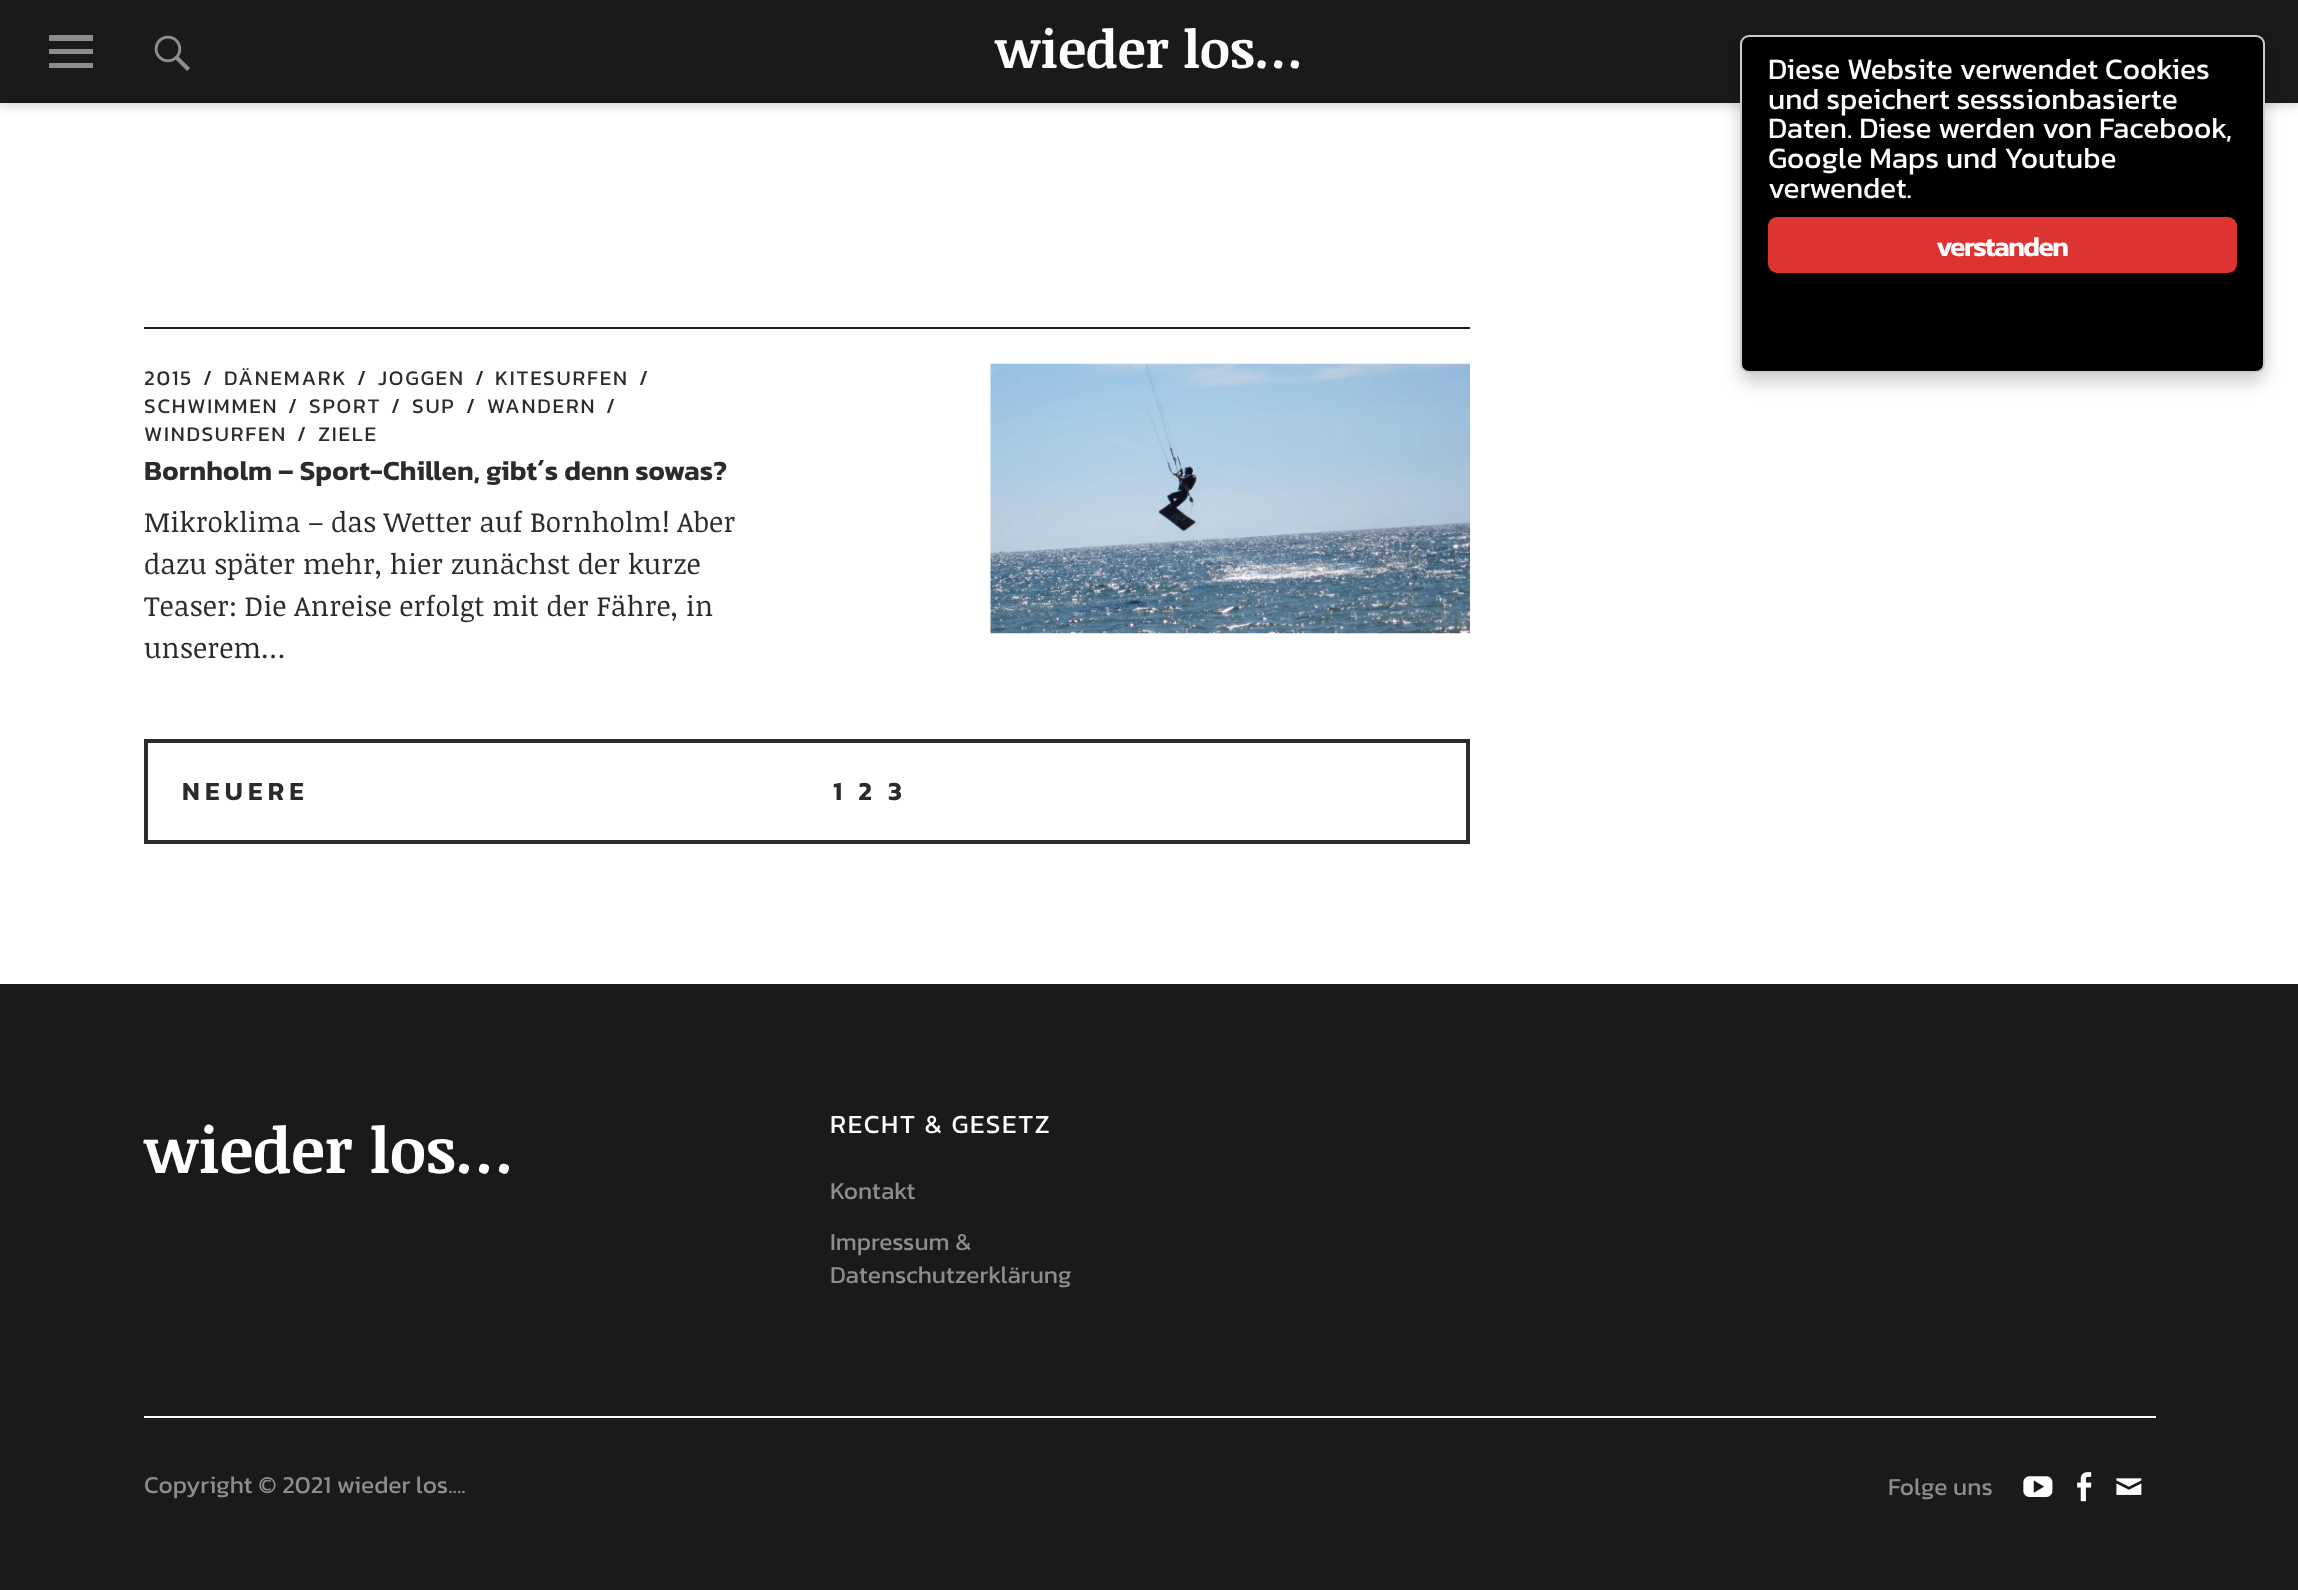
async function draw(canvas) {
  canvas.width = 2298
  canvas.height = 1590
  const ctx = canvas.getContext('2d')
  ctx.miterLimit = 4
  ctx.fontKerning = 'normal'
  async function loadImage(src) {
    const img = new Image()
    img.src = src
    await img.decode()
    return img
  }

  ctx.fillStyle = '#fff'
  ctx.fillRect(0, 0, 2298, 1590)
  ctx.fillStyle = '#00000040'
  ctx.filter = 'blur(7px)'
  ctx.beginPath()
  ctx.rect(0, 0, 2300, 103)
  ctx.fill()
  ctx.filter = 'none'
  ctx.fillStyle = '#1a1a1a'
  ctx.fillRect(0, 0, 2298, 103)
  ctx.fillStyle = '#8d8d8d'
  ctx.beginPath()
  ctx.moveTo(49, 68)
  ctx.lineTo(49, 63)
  ctx.lineTo(93, 63)
  ctx.lineTo(93, 68)
  ctx.closePath()
  ctx.moveTo(49, 35)
  ctx.lineTo(93, 35)
  ctx.lineTo(93, 41)
  ctx.lineTo(49, 41)
  ctx.closePath()
  ctx.moveTo(49, 54)
  ctx.lineTo(49, 49)
  ctx.lineTo(93, 49)
  ctx.lineTo(93, 54)
  ctx.closePath()
  ctx.fill()
  ctx.drawImage(await loadImage('image0.png'), 154, 35, 36, 36)
  ctx.font = 'bold 52.5px Noticia Text'
  ctx.fillStyle = '#fff'
  ctx.fillText('wieder los…', 995, 68)
  ctx.fillStyle = '#1a1a1a'
  ctx.fillRect(144, 327, 1326, 2)
  ctx.letterSpacing = '1.75px'
  ctx.font = '21px Kanit'
  ctx.fillStyle = '#2b2b2b'
  ctx.fillText('2015', 144, 385)
  ctx.fillText('/', 203, 385)
  ctx.fillText('DÄNEMARK', 224, 385)
  ctx.fillText('/', 357, 385)
  ctx.fillText('JOGGEN', 378, 385)
  ctx.fillText('/', 475, 385)
  ctx.fillText('KITESURFEN', 495, 385)
  ctx.fillText('/', 639, 385)
  ctx.fillText('SCHWIMMEN', 144, 413)
  ctx.fillText('/', 288, 413)
  ctx.fillText('SPORT', 309, 413)
  ctx.fillText('/', 391, 413)
  ctx.fillText('SUP', 412, 413)
  ctx.fillText('/', 466, 413)
  ctx.fillText('WANDERN', 487, 413)
  ctx.fillText('/', 606, 413)
  ctx.fillText('WINDSURFEN', 144, 441)
  ctx.fillText('/', 297, 441)
  ctx.fillText('ZIELE', 318, 441)
  ctx.letterSpacing = '0px'
  ctx.font = '600 28px Kanit'
  ctx.fillText('Bornholm – Sport-Chillen, gibt´s denn sowas?', 144, 480)
  ctx.font = '28px Noticia Text'
  ctx.fillText('Mikroklima – das Wetter auf Bornholm! Aber', 144, 532)
  ctx.fillText('dazu später mehr, hier zunächst der kurze', 144, 574)
  ctx.fillText('Teaser: Die Anreise erfolgt mit der Fähre, in', 144, 616)
  ctx.fillText('unserem…', 144, 658)
  ctx.drawImage(await loadImage('image1.png'), 990, 363, 480, 271)
  ctx.strokeStyle = '#2b2b2b'
  ctx.lineWidth = 4
  ctx.strokeRect(146, 741, 1322, 101)
  ctx.letterSpacing = '5.25px'
  ctx.font = '600 26.25px Kanit'
  ctx.fillText('NEUERE', 182, 800)
  ctx.fillText('1 2 3', 833, 800)
  ctx.fillStyle = '#1a1a1a'
  ctx.fillRect(0, 984, 2298, 606)
  ctx.fillStyle = '#fff'
  ctx.fillRect(144, 1416, 2012, 2)
  ctx.letterSpacing = '0px'
  ctx.font = 'bold 63px Noticia Text'
  ctx.fillText('wieder los…', 144, 1173)
  ctx.letterSpacing = '1.75px'
  ctx.font = '26.25px Kanit'
  ctx.fillText('RECHT & GESETZ', 830, 1133)
  ctx.letterSpacing = '0px'
  ctx.font = '24.5px Kanit'
  ctx.fillStyle = '#8d8d8d'
  ctx.fillText('Kontakt', 830, 1199)
  ctx.fillText('Impressum &', 830, 1250)
  ctx.fillText('Datenschutzerklärung', 830, 1283)
  ctx.fillText('Copyright © 2021 wieder los....', 144, 1493)
  ctx.fillText('Folge uns', 1888, 1495)
  ctx.drawImage(await loadImage('image2.png'), 2023, 1476, 30, 21)
  ctx.drawImage(await loadImage('image3.png'), 2077, 1472, 15, 30)
  ctx.drawImage(await loadImage('image4.png'), 2116, 1478, 26, 17)
  ctx.fillStyle = '#00000033'
  ctx.filter = 'blur(9px)'
  ctx.beginPath()
  ctx.roundRect(1740, 44, 525, 338, 9)
  ctx.fill()
  ctx.filter = 'none'
  ctx.fillStyle = '#000'
  ctx.beginPath()
  ctx.roundRect(1741, 36, 523, 336, 8)
  ctx.fill()
  ctx.strokeStyle = '#ccc'
  ctx.lineWidth = 2
  ctx.stroke()
  ctx.font = '29.75px Kanit'
  ctx.fillStyle = '#fff'
  ctx.fillText('Diese Website verwendet Cookies', 1768, 79)
  ctx.fillText('und speichert sesssionbasierte', 1768, 109)
  ctx.fillText('Daten. Diese werden von Facebook,', 1768, 138)
  ctx.fillText('Google Maps und Youtube', 1768, 168)
  ctx.fillText('verwendet.', 1768, 198)
  ctx.fillStyle = '#d33'
  ctx.beginPath()
  ctx.roundRect(1768, 217, 469, 56, 9)
  ctx.fill()
  ctx.letterSpacing = '-1.4px'
  ctx.font = '600 28px Kanit'
  ctx.fillStyle = '#fff'
  ctx.fillText('verstanden', 1936, 256)
}

draw(document.querySelector('canvas'))
